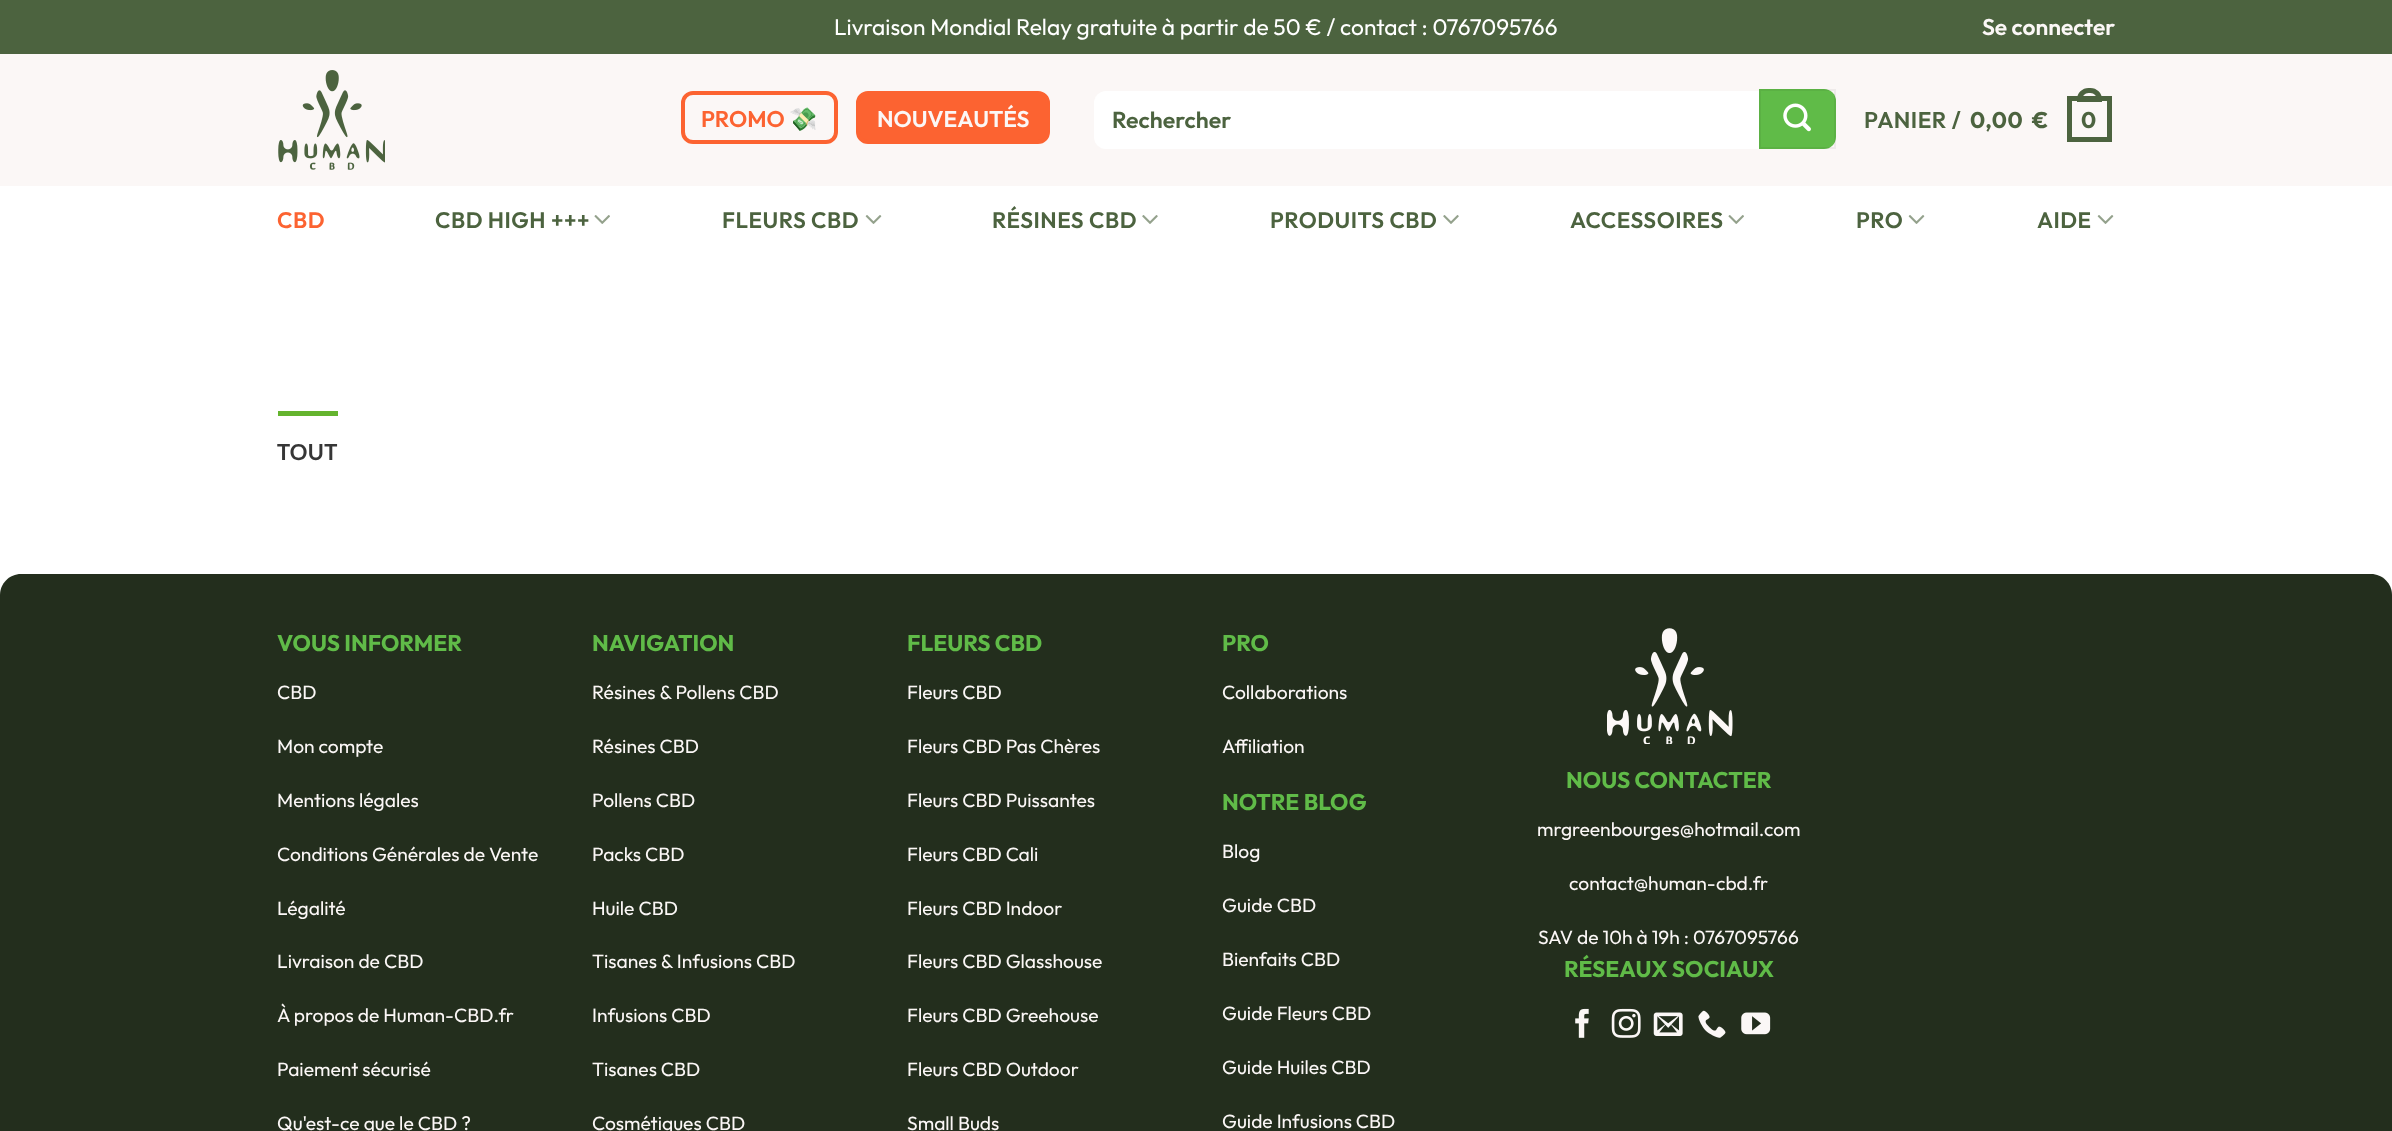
async function draw(canvas) {
  canvas.width = 2392
  canvas.height = 1131
  const ctx = canvas.getContext('2d')
  ctx.miterLimit = 4
  ctx.fontKerning = 'normal'
  async function loadImage(src) {
    const img = new Image()
    img.src = src
    await img.decode()
    return img
  }

  ctx.fillStyle = '#fff'
  ctx.fillRect(0, 0, 2392, 1131)
  ctx.fillStyle = '#4c633f'
  ctx.fillRect(0, 0, 2392, 54)
  ctx.font = '22.75px Outfit'
  ctx.fillStyle = '#fff'
  ctx.fillText('Livraison Mondial Relay gratuite à partir de 50 € / contact : 0767095766', 834, 35)
  ctx.font = '600 22.75px Outfit'
  ctx.fillStyle = '#fbf7f6'
  ctx.fillText('Se connecter', 1982, 35)
  ctx.fillRect(0, 54, 2392, 132)
  ctx.drawImage(await loadImage('image0.png'), 278, 70, 107, 100)
  ctx.beginPath()
  ctx.roundRect(683, 93, 153, 49, 10)
  ctx.strokeStyle = '#fc6331'
  ctx.lineWidth = 4
  ctx.stroke()
  ctx.fillStyle = '#fc6331'
  ctx.fillText('PROMO', 701, 127)
  ctx.font = 'bold 22.75px Noto Color Emoji'
  ctx.fillText('💸', 789, 127)
  ctx.beginPath()
  ctx.roundRect(858, 93, 190, 49, 10)
  ctx.fill()
  ctx.stroke()
  ctx.font = '600 22.75px Outfit'
  ctx.fillStyle = '#fbf7f6'
  ctx.fillText('NOUVEAUTÉS', 877, 127)
  ctx.fillStyle = '#fff'
  ctx.beginPath()
  ctx.roundRect(1094, 91, 665, 58, [12, 0, 0, 12])
  ctx.fill()
  ctx.font = '600 23px Outfit'
  ctx.fillStyle = '#4c633f'
  ctx.fillText('Rechercher', 1112, 128)
  ctx.fillStyle = '#60bb48'
  ctx.beginPath()
  ctx.roundRect(1759, 89, 77, 60, [0, 12, 12, 0])
  ctx.fill()
  ctx.strokeStyle = '#0000000d'
  ctx.lineWidth = 2
  ctx.strokeRect(1760, 90, 75, 58)
  ctx.drawImage(await loadImage('image1.png'), 1783, 103, 28, 29)
  ctx.letterSpacing = '0.5px'
  ctx.font = '600 22.75px Outfit'
  ctx.fillStyle = '#4c633f'
  ctx.fillText('PANIER /', 1864, 128)
  ctx.font = 'bold 22.75px Outfit'
  ctx.fillText('0,00', 1970, 128)
  ctx.fillText('€', 2032, 128)
  ctx.strokeStyle = '#4c633f'
  ctx.lineWidth = 5
  ctx.strokeRect(2069.5, 98.5, 40, 41)
  ctx.beginPath()
  ctx.roundRect(2079.5, 90.5, 20, 9, [9.5, 9.5, 0, 0])
  ctx.stroke()
  ctx.fillText('0', 2081, 128)
  ctx.font = '600 22.5px Outfit'
  ctx.fillStyle = '#fc6331'
  ctx.fillText('CBD', 277, 228)
  ctx.fillStyle = '#4c633f'
  ctx.fillText('CBD HIGH +++', 435, 228)
  ctx.drawImage(await loadImage('image2.png'), 594, 215, 16, 9)
  ctx.fillText('FLEURS CBD', 722, 228)
  ctx.drawImage(await loadImage('image3.png'), 865, 215, 17, 9)
  ctx.fillText('RÉSINES CBD', 992, 228)
  ctx.drawImage(await loadImage('image4.png'), 1142, 215, 16, 9)
  ctx.fillText('PRODUITS CBD', 1270, 228)
  ctx.drawImage(await loadImage('image4.png'), 1443, 215, 16, 9)
  ctx.fillText('ACCESSOIRES', 1570, 228)
  ctx.drawImage(await loadImage('image2.png'), 1728, 215, 16, 9)
  ctx.fillText('PRO', 1856, 228)
  ctx.drawImage(await loadImage('image3.png'), 1908, 215, 17, 9)
  ctx.fillText('AIDE', 2037, 228)
  ctx.drawImage(await loadImage('image3.png'), 2097, 215, 17, 9)
  ctx.fillStyle = '#64b42e'
  ctx.fillRect(278, 411, 60, 5)
  ctx.font = 'bold 22px Lato'
  ctx.fillStyle = '#363636'
  ctx.fillText('TOUT', 277, 460)
  ctx.fillStyle = '#232e1d'
  ctx.beginPath()
  ctx.moveTo(21, 574)
  ctx.lineTo(2371, 574)
  ctx.bezierCurveTo(2382.5, 574, 2392, 583.5, 2392, 595)
  ctx.lineTo(2392, 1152)
  ctx.lineTo(0, 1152)
  ctx.lineTo(0, 595)
  ctx.bezierCurveTo(0, 583.5, 9.5, 574, 21, 574)
  ctx.closePath()
  ctx.fill()
  ctx.letterSpacing = '0px'
  ctx.font = 'bold 22.75px Outfit'
  ctx.fillStyle = '#60bb48'
  ctx.fillText('VOUS INFORMER', 277, 651)
  ctx.font = '19.25px Outfit'
  ctx.fillStyle = '#fbf7f6'
  ctx.fillText('CBD', 277, 699)
  ctx.fillText('Mon compte', 277, 753)
  ctx.fillText('Mentions légales', 277, 807)
  ctx.fillText('Conditions Générales de Vente', 277, 861)
  ctx.fillText('Légalité', 277, 915)
  ctx.fillText('Livraison de CBD', 277, 968)
  ctx.fillText('À propos de Human-CBD.fr', 277, 1022)
  ctx.fillText('Paiement sécurisé', 277, 1076)
  ctx.fillText('Qu\'est-ce que le CBD ?', 277, 1130)
  ctx.font = 'bold 22.75px Outfit'
  ctx.fillStyle = '#60bb48'
  ctx.fillText('NAVIGATION', 592, 651)
  ctx.font = '19.25px Outfit'
  ctx.fillStyle = '#fbf7f6'
  ctx.fillText('Résines & Pollens CBD', 592, 699)
  ctx.fillText('Résines CBD', 592, 753)
  ctx.fillText('Pollens CBD', 592, 807)
  ctx.fillText('Packs CBD', 592, 861)
  ctx.fillText('Huile CBD', 592, 915)
  ctx.fillText('Tisanes & Infusions CBD', 592, 968)
  ctx.fillText('Infusions CBD', 592, 1022)
  ctx.fillText('Tisanes CBD', 592, 1076)
  ctx.fillText('Cosmétiques CBD', 592, 1130)
  ctx.font = 'bold 22.75px Outfit'
  ctx.fillStyle = '#60bb48'
  ctx.fillText('FLEURS CBD', 907, 651)
  ctx.font = '19.25px Outfit'
  ctx.fillStyle = '#fbf7f6'
  ctx.fillText('Fleurs CBD', 907, 699)
  ctx.fillText('Fleurs CBD Pas Chères', 907, 753)
  ctx.fillText('Fleurs CBD Puissantes', 907, 807)
  ctx.fillText('Fleurs CBD Cali', 907, 861)
  ctx.fillText('Fleurs CBD Indoor', 907, 915)
  ctx.fillText('Fleurs CBD Glasshouse', 907, 968)
  ctx.fillText('Fleurs CBD Greehouse', 907, 1022)
  ctx.fillText('Fleurs CBD Outdoor', 907, 1076)
  ctx.fillText('Small Buds', 907, 1130)
  ctx.font = 'bold 22.75px Outfit'
  ctx.fillStyle = '#60bb48'
  ctx.fillText('PRO', 1222, 651)
  ctx.font = '19.25px Outfit'
  ctx.fillStyle = '#fbf7f6'
  ctx.fillText('Collaborations', 1222, 699)
  ctx.fillText('Affiliation', 1222, 753)
  ctx.font = 'bold 22.75px Outfit'
  ctx.fillStyle = '#60bb48'
  ctx.fillText('NOTRE BLOG', 1222, 810)
  ctx.font = '19.25px Outfit'
  ctx.fillStyle = '#fbf7f6'
  ctx.fillText('Blog', 1222, 858)
  ctx.fillText('Guide CBD', 1222, 912)
  ctx.fillText('Bienfaits CBD', 1222, 966)
  ctx.fillText('Guide Fleurs CBD', 1222, 1020)
  ctx.fillText('Guide Huiles CBD', 1222, 1074)
  ctx.fillText('Guide Infusions CBD', 1222, 1128)
  ctx.drawImage(await loadImage('image5.png'), 1607, 628, 126, 116)
  ctx.font = 'bold 22.75px Outfit'
  ctx.fillStyle = '#60bb48'
  ctx.fillText('NOUS CONTACTER', 1566, 788)
  ctx.font = '19.25px Outfit'
  ctx.fillStyle = '#fbf7f6'
  ctx.fillText('mrgreenbourges@hotmail.com', 1537, 836)
  ctx.fillText('contact@human-cbd.fr', 1569, 890)
  ctx.fillText('SAV de 10h à 19h : 0767095766', 1538, 944)
  ctx.font = 'bold 22.75px Outfit'
  ctx.fillStyle = '#60bb48'
  ctx.fillText('RÉSEAUX SOCIAUX', 1564, 977)
  ctx.drawImage(await loadImage('image6.png'), 1575, 1008, 14, 30)
  ctx.drawImage(await loadImage('image7.png'), 1611, 1008, 30, 30)
  ctx.drawImage(await loadImage('image8.png'), 1653, 1012, 30, 24)
  ctx.drawImage(await loadImage('image9.png'), 1698, 1010, 28, 28)
  ctx.drawImage(await loadImage('image10.png'), 1741, 1012, 30, 23)
}

draw(document.querySelector('canvas'))
